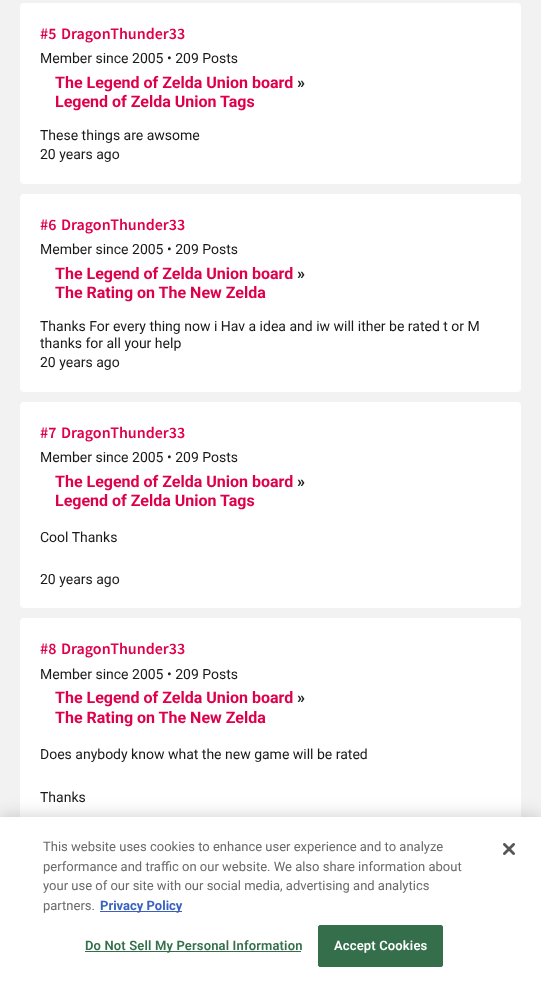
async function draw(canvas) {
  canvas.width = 541
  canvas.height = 983
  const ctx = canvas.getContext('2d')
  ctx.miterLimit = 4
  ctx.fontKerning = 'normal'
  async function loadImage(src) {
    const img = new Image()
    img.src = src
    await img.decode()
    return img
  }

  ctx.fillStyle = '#f2f2f3'
  ctx.fillRect(0, 0, 541, 983)
  ctx.fillStyle = '#fff'
  ctx.beginPath()
  ctx.roundRect(20, 3, 501, 181, 4)
  ctx.fill()
  ctx.font = '600 16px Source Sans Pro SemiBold'
  ctx.fillStyle = '#de004a'
  ctx.fillText('#5', 40, 39)
  ctx.fillText('DragonThunder33', 61, 39)
  ctx.font = '14px Roboto'
  ctx.fillStyle = '#191919'
  ctx.fillText('Member since 2005 • 209 Posts', 40, 63)
  ctx.font = 'bold 16px Roboto'
  ctx.fillStyle = '#de004a'
  ctx.fillText('The Legend of Zelda Union board', 55, 88)
  ctx.fillStyle = '#262626'
  ctx.fillText('»', 297, 88)
  ctx.fillStyle = '#de004a'
  ctx.fillText('Legend of Zelda Union Tags', 55, 107)
  ctx.font = '14px Roboto'
  ctx.fillStyle = '#191919'
  ctx.fillText('These things are awsome', 40, 140)
  ctx.fillText('20 years ago', 40, 159)
  ctx.fillStyle = '#fff'
  ctx.beginPath()
  ctx.roundRect(20, 194, 501, 198, 4)
  ctx.fill()
  ctx.font = '600 16px Source Sans Pro SemiBold'
  ctx.fillStyle = '#de004a'
  ctx.fillText('#6', 40, 230)
  ctx.fillText('DragonThunder33', 61, 230)
  ctx.font = '14px Roboto'
  ctx.fillStyle = '#191919'
  ctx.fillText('Member since 2005 • 209 Posts', 40, 254)
  ctx.font = 'bold 16px Roboto'
  ctx.fillStyle = '#de004a'
  ctx.fillText('The Legend of Zelda Union board', 55, 279)
  ctx.fillStyle = '#262626'
  ctx.fillText('»', 297, 279)
  ctx.fillStyle = '#de004a'
  ctx.fillText('The Rating on The New Zelda', 55, 298)
  ctx.font = '14px Roboto'
  ctx.fillStyle = '#191919'
  ctx.fillText('Thanks For every thing now i Hav a idea and iw will ither be rated t or M', 40, 331)
  ctx.fillText('thanks for all your help', 40, 348)
  ctx.fillText('20 years ago', 40, 367)
  ctx.fillStyle = '#fff'
  ctx.beginPath()
  ctx.roundRect(20, 402, 501, 206, 4)
  ctx.fill()
  ctx.font = '600 16px Source Sans Pro SemiBold'
  ctx.fillStyle = '#de004a'
  ctx.fillText('#7', 40, 438)
  ctx.fillText('DragonThunder33', 61, 438)
  ctx.font = '14px Roboto'
  ctx.fillStyle = '#191919'
  ctx.fillText('Member since 2005 • 209 Posts', 40, 462)
  ctx.font = 'bold 16px Roboto'
  ctx.fillStyle = '#de004a'
  ctx.fillText('The Legend of Zelda Union board', 55, 487)
  ctx.fillStyle = '#262626'
  ctx.fillText('»', 297, 487)
  ctx.fillStyle = '#de004a'
  ctx.fillText('Legend of Zelda Union Tags', 55, 506)
  ctx.font = '14px Roboto'
  ctx.fillStyle = '#191919'
  ctx.fillText('Cool Thanks', 40, 542)
  ctx.fillText('20 years ago', 40, 584)
  ctx.fillStyle = '#fff'
  ctx.beginPath()
  ctx.roundRect(20, 618, 501, 250, 4)
  ctx.fill()
  ctx.font = '600 16px Source Sans Pro SemiBold'
  ctx.fillStyle = '#de004a'
  ctx.fillText('#8', 40, 654)
  ctx.fillText('DragonThunder33', 61, 654)
  ctx.font = '14px Roboto'
  ctx.fillStyle = '#191919'
  ctx.fillText('Member since 2005 • 209 Posts', 40, 679)
  ctx.font = 'bold 16px Roboto'
  ctx.fillStyle = '#de004a'
  ctx.fillText('The Legend of Zelda Union board', 55, 703)
  ctx.fillStyle = '#262626'
  ctx.fillText('»', 297, 703)
  ctx.fillStyle = '#de004a'
  ctx.fillText('The Rating on The New Zelda', 55, 723)
  ctx.font = '14px Roboto'
  ctx.fillStyle = '#191919'
  ctx.fillText('Does anybody know what the new game will be rated', 40, 759)
  ctx.fillText('Thanks', 40, 802)
  ctx.fillStyle = '#00000033'
  ctx.filter = 'blur(9px)'
  ctx.beginPath()
  ctx.rect(0, 817, 541, 166)
  ctx.fill()
  ctx.filter = 'none'
  ctx.fillStyle = '#fff'
  ctx.fillRect(0, 817, 541, 166)
  ctx.font = '13px Roboto'
  ctx.fillStyle = '#696969'
  ctx.fillText('This website uses cookies to enhance user experience and to analyze', 43, 851)
  ctx.fillText('performance and traffic on our website. We also share information about', 43, 871)
  ctx.fillText('your use of our site with our social media, advertising and analytics', 43, 890)
  ctx.fillText('partners.', 43, 910)
  ctx.fillStyle = '#3860be'
  ctx.fillRect(100, 911, 82, 1)
  ctx.font = 'bold 13px Roboto'
  ctx.fillText('Privacy Policy', 100, 910)
  ctx.fillStyle = '#346e4a'
  ctx.fillRect(85, 951, 216, 1)
  ctx.letterSpacing = '0.15px'
  ctx.font = '600 13px Roboto'
  ctx.fillText('Do Not Sell My Personal Information', 85, 950)
  ctx.beginPath()
  ctx.roundRect(318.5, 925.5, 124, 41, 1.5)
  ctx.fill()
  ctx.strokeStyle = '#346e4a'
  ctx.stroke()
  ctx.fillStyle = '#fff'
  ctx.fillText('Accept Cookies', 334, 950)
  ctx.drawImage(await loadImage('image0.png'), 503, 843, 12, 12)
}

draw(document.querySelector('canvas'))
